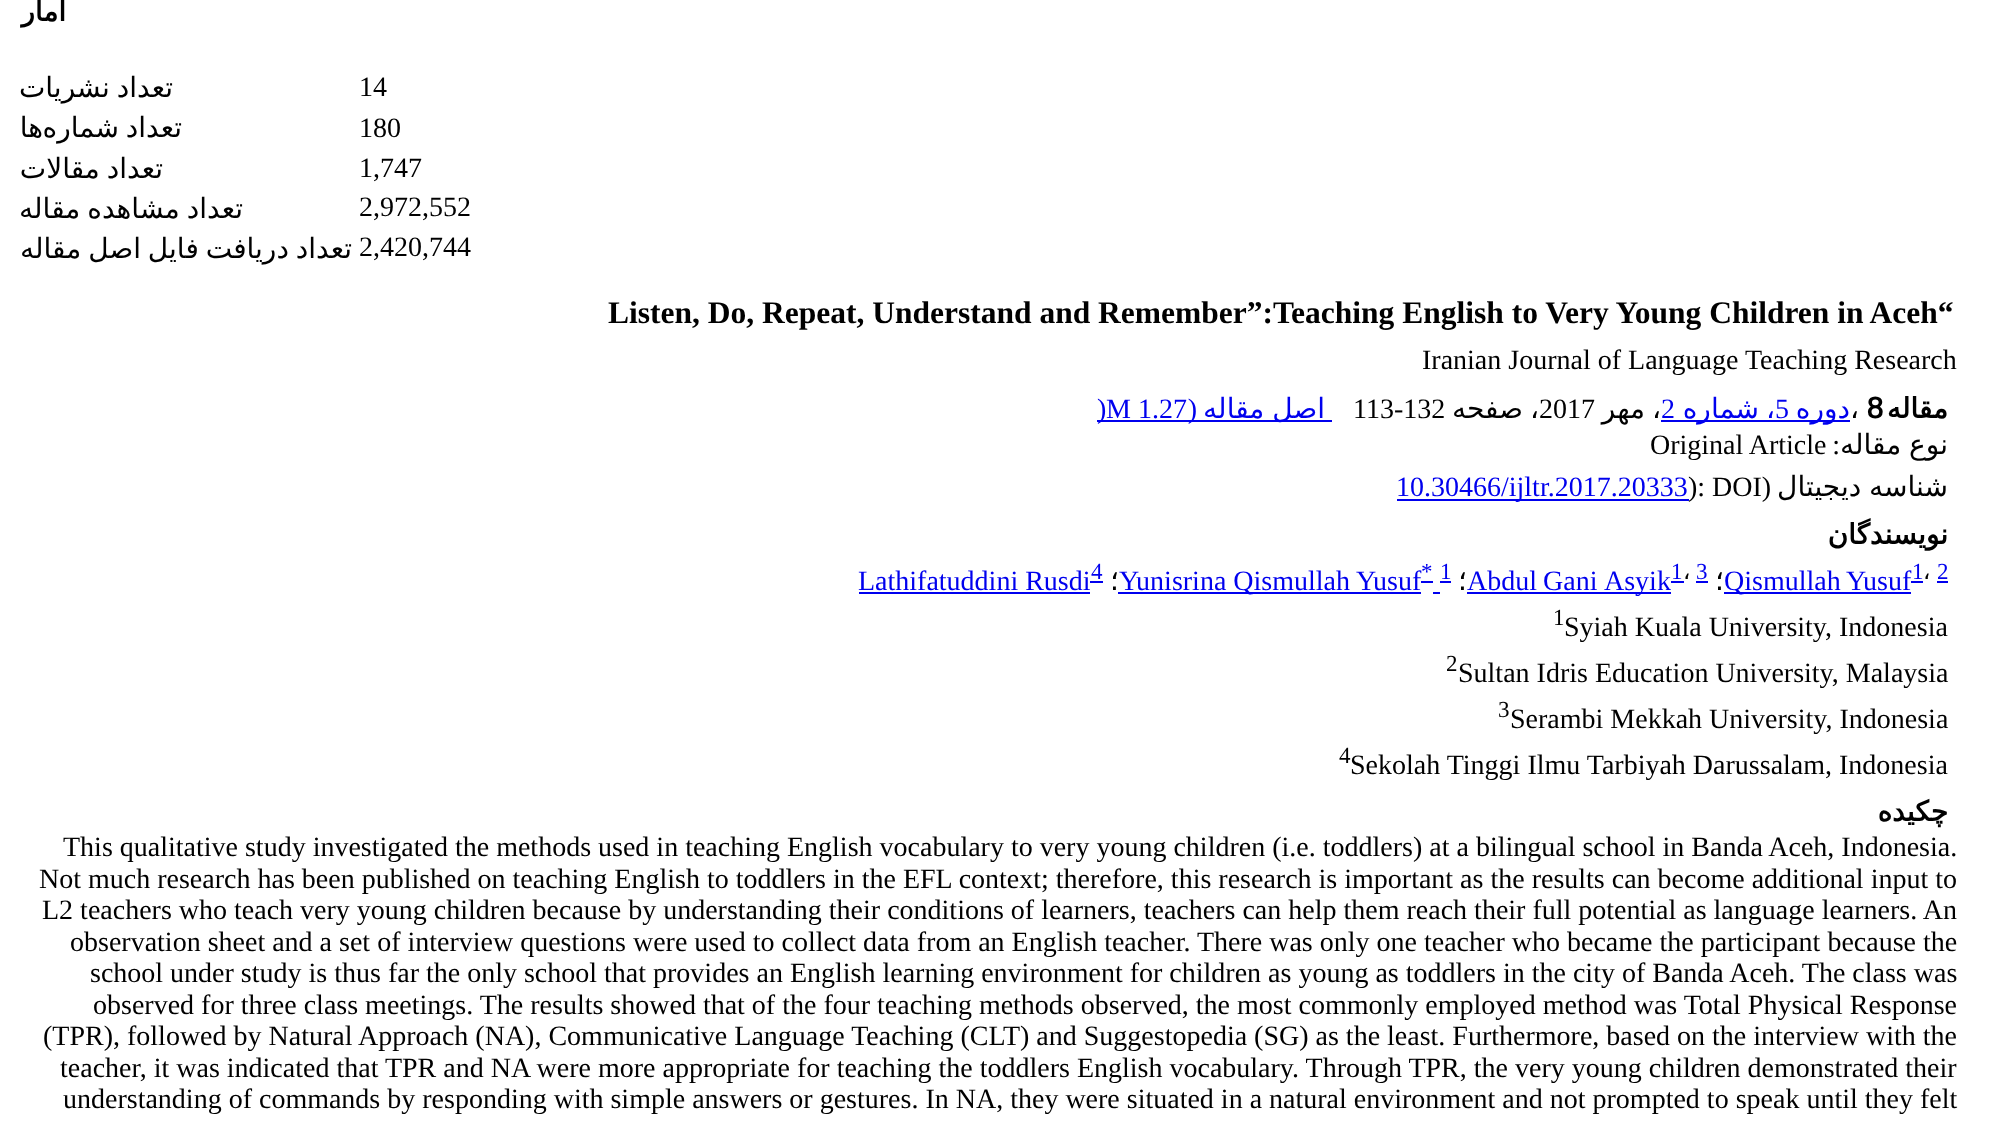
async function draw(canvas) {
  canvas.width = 2013
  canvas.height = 1135
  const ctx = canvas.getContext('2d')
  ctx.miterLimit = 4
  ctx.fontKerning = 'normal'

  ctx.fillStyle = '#fff'
  ctx.fillRect(0, 0, 2013, 1135)
  ctx.direction = 'rtl'
  ctx.font = 'bold 28px DejaVu Sans'
  ctx.fillStyle = '#000'
  ctx.fillText('آمار', 66, 21)
  ctx.wordSpacing = '-2px'
  ctx.font = '28px DejaVu Sans'
  ctx.fillText('تعداد نشریات', 173, 97)
  ctx.wordSpacing = '0px'
  ctx.direction = 'ltr'
  ctx.font = '28px Liberation Serif'
  ctx.fillText('14', 359, 96)
  ctx.direction = 'rtl'
  ctx.font = '28px DejaVu Sans'
  ctx.fillText('ها', 43, 137)
  ctx.wordSpacing = '-2px'
  ctx.fillText('تعداد شماره', 182, 137)
  ctx.wordSpacing = '0px'
  ctx.direction = 'ltr'
  ctx.font = '28px Liberation Serif'
  ctx.fillText('180', 359, 137)
  ctx.wordSpacing = '-2px'
  ctx.direction = 'rtl'
  ctx.font = '28px DejaVu Sans'
  ctx.fillText('تعداد مقالات', 163, 178)
  ctx.wordSpacing = '0px'
  ctx.direction = 'ltr'
  ctx.font = '28px Liberation Serif'
  ctx.fillText('1,747', 359, 177)
  ctx.wordSpacing = '-2px'
  ctx.direction = 'rtl'
  ctx.font = '28px DejaVu Sans'
  ctx.fillText('تعداد مشاهده مقاله', 243, 218)
  ctx.wordSpacing = '0px'
  ctx.direction = 'ltr'
  ctx.font = '28px Liberation Serif'
  ctx.fillText('2,972,552', 359, 216)
  ctx.wordSpacing = '-2px'
  ctx.direction = 'rtl'
  ctx.font = '28px DejaVu Sans'
  ctx.fillText('تعداد دریافت فایل اصل مقاله', 352, 258)
  ctx.wordSpacing = '0px'
  ctx.direction = 'ltr'
  ctx.font = '28px Liberation Serif'
  ctx.fillText('2,420,744', 359, 256)
  ctx.font = 'bold 31.5px Liberation Serif'
  ctx.fillText('Listen, Do, Repeat, Understand and Remember”:Teaching English to Very Young Children in Aceh“', 608, 323)
  ctx.font = '28px Liberation Serif'
  ctx.fillText('Iranian Journal of Language Teaching Research', 1422, 369)
  ctx.fillStyle = '#00e'
  ctx.fillRect(1097, 420, 90, 2)
  ctx.fillText(')', 1097, 418)
  ctx.fillText('M 1.27', 1106, 418)
  ctx.fillRect(1187, 420, 145, 2)
  ctx.direction = 'rtl'
  ctx.fillText('(', 1197, 418)
  ctx.wordSpacing = '-1px'
  ctx.font = '28px DejaVu Sans'
  ctx.fillText('اصل مقاله', 1325, 418)
  ctx.wordSpacing = '0px'
  ctx.direction = 'ltr'
  ctx.font = '28px Liberation Serif'
  ctx.fillStyle = '#000'
  ctx.fillText('113-132', 1353, 418)
  ctx.wordSpacing = '-2px'
  ctx.direction = 'rtl'
  ctx.font = '28px DejaVu Sans'
  ctx.fillText('، صفحه', 1539, 418)
  ctx.wordSpacing = '0px'
  ctx.direction = 'ltr'
  ctx.font = '28px Liberation Serif'
  ctx.fillText('2017', 1539, 418)
  ctx.wordSpacing = '-2px'
  ctx.direction = 'rtl'
  ctx.font = '28px DejaVu Sans'
  ctx.fillText('، مهر', 1661, 418)
  ctx.wordSpacing = '0px'
  ctx.direction = 'ltr'
  ctx.font = '28px Liberation Serif'
  ctx.fillStyle = '#00e'
  ctx.fillText('2', 1661, 418)
  ctx.fillRect(1661, 420, 189, 2)
  ctx.wordSpacing = '-2px'
  ctx.direction = 'rtl'
  ctx.font = '28px DejaVu Sans'
  ctx.fillText('، شماره', 1775, 418)
  ctx.wordSpacing = '0px'
  ctx.direction = 'ltr'
  ctx.font = '28px Liberation Serif'
  ctx.fillText('5', 1775, 418)
  ctx.direction = 'rtl'
  ctx.font = '28px DejaVu Sans'
  ctx.fillText('دوره', 1850, 418)
  ctx.direction = 'ltr'
  ctx.fillStyle = '#000'
  ctx.fillText('،', 1850, 418)
  ctx.font = 'bold 28px DejaVu Sans'
  ctx.fillText('8', 1866, 418)
  ctx.direction = 'rtl'
  ctx.fillText('مقاله', 1948, 418)
  ctx.direction = 'ltr'
  ctx.font = '28px Liberation Serif'
  ctx.fillText('Original Article', 1650, 454)
  ctx.direction = 'rtl'
  ctx.fillText(':', 1840, 454)
  ctx.wordSpacing = '-1px'
  ctx.font = '28px DejaVu Sans'
  ctx.fillText('نوع مقاله', 1948, 454)
  ctx.wordSpacing = '0px'
  ctx.direction = 'ltr'
  ctx.font = '28px Liberation Serif'
  ctx.fillText('): DOI', 1688, 496)
  ctx.fillStyle = '#00e'
  ctx.fillRect(1397, 499, 292, 2)
  ctx.fillText('10.30466/ijltr.2017.20333', 1396, 496)
  ctx.direction = 'rtl'
  ctx.fillStyle = '#000'
  ctx.fillText('(', 1771, 496)
  ctx.wordSpacing = '-1px'
  ctx.font = '28px DejaVu Sans'
  ctx.fillText('شناسه دیجیتال', 1948, 496)
  ctx.wordSpacing = '0px'
  ctx.font = 'bold 28px DejaVu Sans'
  ctx.fillText('نویسندگان', 1948, 544)
  ctx.direction = 'ltr'
  ctx.font = '28px Liberation Serif'
  ctx.fillStyle = '#00e'
  ctx.fillText('Lathifatuddini Rusdi', 858, 590)
  ctx.fillRect(859, 592, 231, 2)
  ctx.font = '23px Liberation Serif'
  ctx.fillText('4', 1091, 579)
  ctx.fillRect(1090, 581, 13, 2)
  ctx.direction = 'rtl'
  ctx.font = '28px DejaVu Sans'
  ctx.fillStyle = '#000'
  ctx.fillText('؛', 1119, 590)
  ctx.fillStyle = '#00e'
  ctx.fillRect(1118, 592, 303, 2)
  ctx.direction = 'ltr'
  ctx.font = '28px Liberation Serif'
  ctx.fillText('Yunisrina Qismullah Yusuf', 1119, 590)
  ctx.fillRect(1421, 581, 12, 2)
  ctx.fillRect(1433, 592, 7, 2)
  ctx.font = '23px Liberation Serif'
  ctx.fillText('*', 1421, 579)
  ctx.fillText('1', 1440, 579)
  ctx.fillRect(1440, 581, 11, 2)
  ctx.direction = 'rtl'
  ctx.font = '28px DejaVu Sans'
  ctx.fillStyle = '#000'
  ctx.fillText('؛', 1467, 590)
  ctx.wordSpacing = '-1px'
  ctx.direction = 'ltr'
  ctx.font = '28px Liberation Serif'
  ctx.fillStyle = '#00e'
  ctx.fillText('Abdul Gani', 1467, 590)
  ctx.fillRect(1467, 592, 204, 2)
  ctx.wordSpacing = '0px'
  ctx.fillText('Asyik', 1604, 590)
  ctx.font = '23px Liberation Serif'
  ctx.fillText('1', 1671, 579)
  ctx.fillRect(1671, 581, 13, 2)
  ctx.font = '23px DejaVu Sans'
  ctx.fillStyle = '#000'
  ctx.fillText('،', 1683, 579)
  ctx.fillStyle = '#00e'
  ctx.fillRect(1696, 581, 12, 2)
  ctx.font = '23px Liberation Serif'
  ctx.fillText('3', 1696, 579)
  ctx.direction = 'rtl'
  ctx.font = '28px DejaVu Sans'
  ctx.fillStyle = '#000'
  ctx.fillText('؛', 1724, 590)
  ctx.fillStyle = '#00e'
  ctx.fillRect(1724, 592, 187, 2)
  ctx.direction = 'ltr'
  ctx.font = '28px Liberation Serif'
  ctx.fillText('Qismullah', 1724, 590)
  ctx.fillText('Yusuf', 1846, 590)
  ctx.font = '23px Liberation Serif'
  ctx.fillText('1', 1912, 579)
  ctx.fillRect(1911, 581, 12, 2)
  ctx.font = '23px DejaVu Sans'
  ctx.fillStyle = '#000'
  ctx.fillText('،', 1923, 579)
  ctx.fillStyle = '#00e'
  ctx.fillRect(1937, 581, 11, 2)
  ctx.font = '23px Liberation Serif'
  ctx.fillText('2', 1937, 579)
  ctx.fillStyle = '#000'
  ctx.fillText('1', 1553, 625)
  ctx.font = '28px Liberation Serif'
  ctx.fillText('Syiah Kuala University, Indonesia', 1564, 636)
  ctx.font = '23px Liberation Serif'
  ctx.fillText('2', 1446, 671)
  ctx.font = '28px Liberation Serif'
  ctx.fillText('Sultan Idris Education University, Malaysia', 1458, 682)
  ctx.font = '23px Liberation Serif'
  ctx.fillText('3', 1498, 717)
  ctx.font = '28px Liberation Serif'
  ctx.fillText('Serambi Mekkah University, Indonesia', 1510, 728)
  ctx.font = '23px Liberation Serif'
  ctx.fillText('4', 1339, 763)
  ctx.font = '28px Liberation Serif'
  ctx.fillText('Sekolah Tinggi Ilmu Tarbiyah Darussalam, Indonesia', 1350, 774)
  ctx.direction = 'rtl'
  ctx.font = 'bold 28px DejaVu Sans'
  ctx.fillText('چکیده', 1948, 821)
  ctx.direction = 'ltr'
  ctx.font = '28px Liberation Serif'
  ctx.fillText('This qualitative study investigated the methods used in teaching English vocabulary to very young children (i.e. toddlers) at a bilingual school in Banda Aceh, Indonesia.', 63, 856)
  ctx.fillText('Not much research has been published on teaching English to toddlers in the EFL context; therefore, this research is important as the results can become additional input to', 39, 888)
  ctx.fillText('L2 teachers who teach very young children because by understanding their conditions of learners, teachers can help them reach their full potential as language learners. An', 42, 919)
  ctx.fillText('observation sheet and a set of interview questions were used to collect data from an English teacher. There was only one teacher who became the participant because the', 70, 951)
  ctx.fillText('school under study is thus far the only school that provides an English learning environment for children as young as toddlers in the city of Banda Aceh. The class was', 90, 982)
  ctx.fillText('observed for three class meetings. The results showed that of the four teaching methods observed, the most commonly employed method was Total Physical Response', 93, 1014)
  ctx.fillText('(TPR), followed by Natural Approach (NA), Communicative Language Teaching (CLT) and Suggestopedia (SG) as the least. Furthermore, based on the interview with the', 43, 1045)
  ctx.fillText('teacher, it was indicated that TPR and NA were more appropriate for teaching the toddlers English vocabulary. Through TPR, the very young children demonstrated their', 60, 1077)
  ctx.fillText('understanding of commands by responding with simple answers or gestures. In NA, they were situated in a natural environment and not prompted to speak until they felt', 63, 1108)
}

draw(document.querySelector('canvas'))
